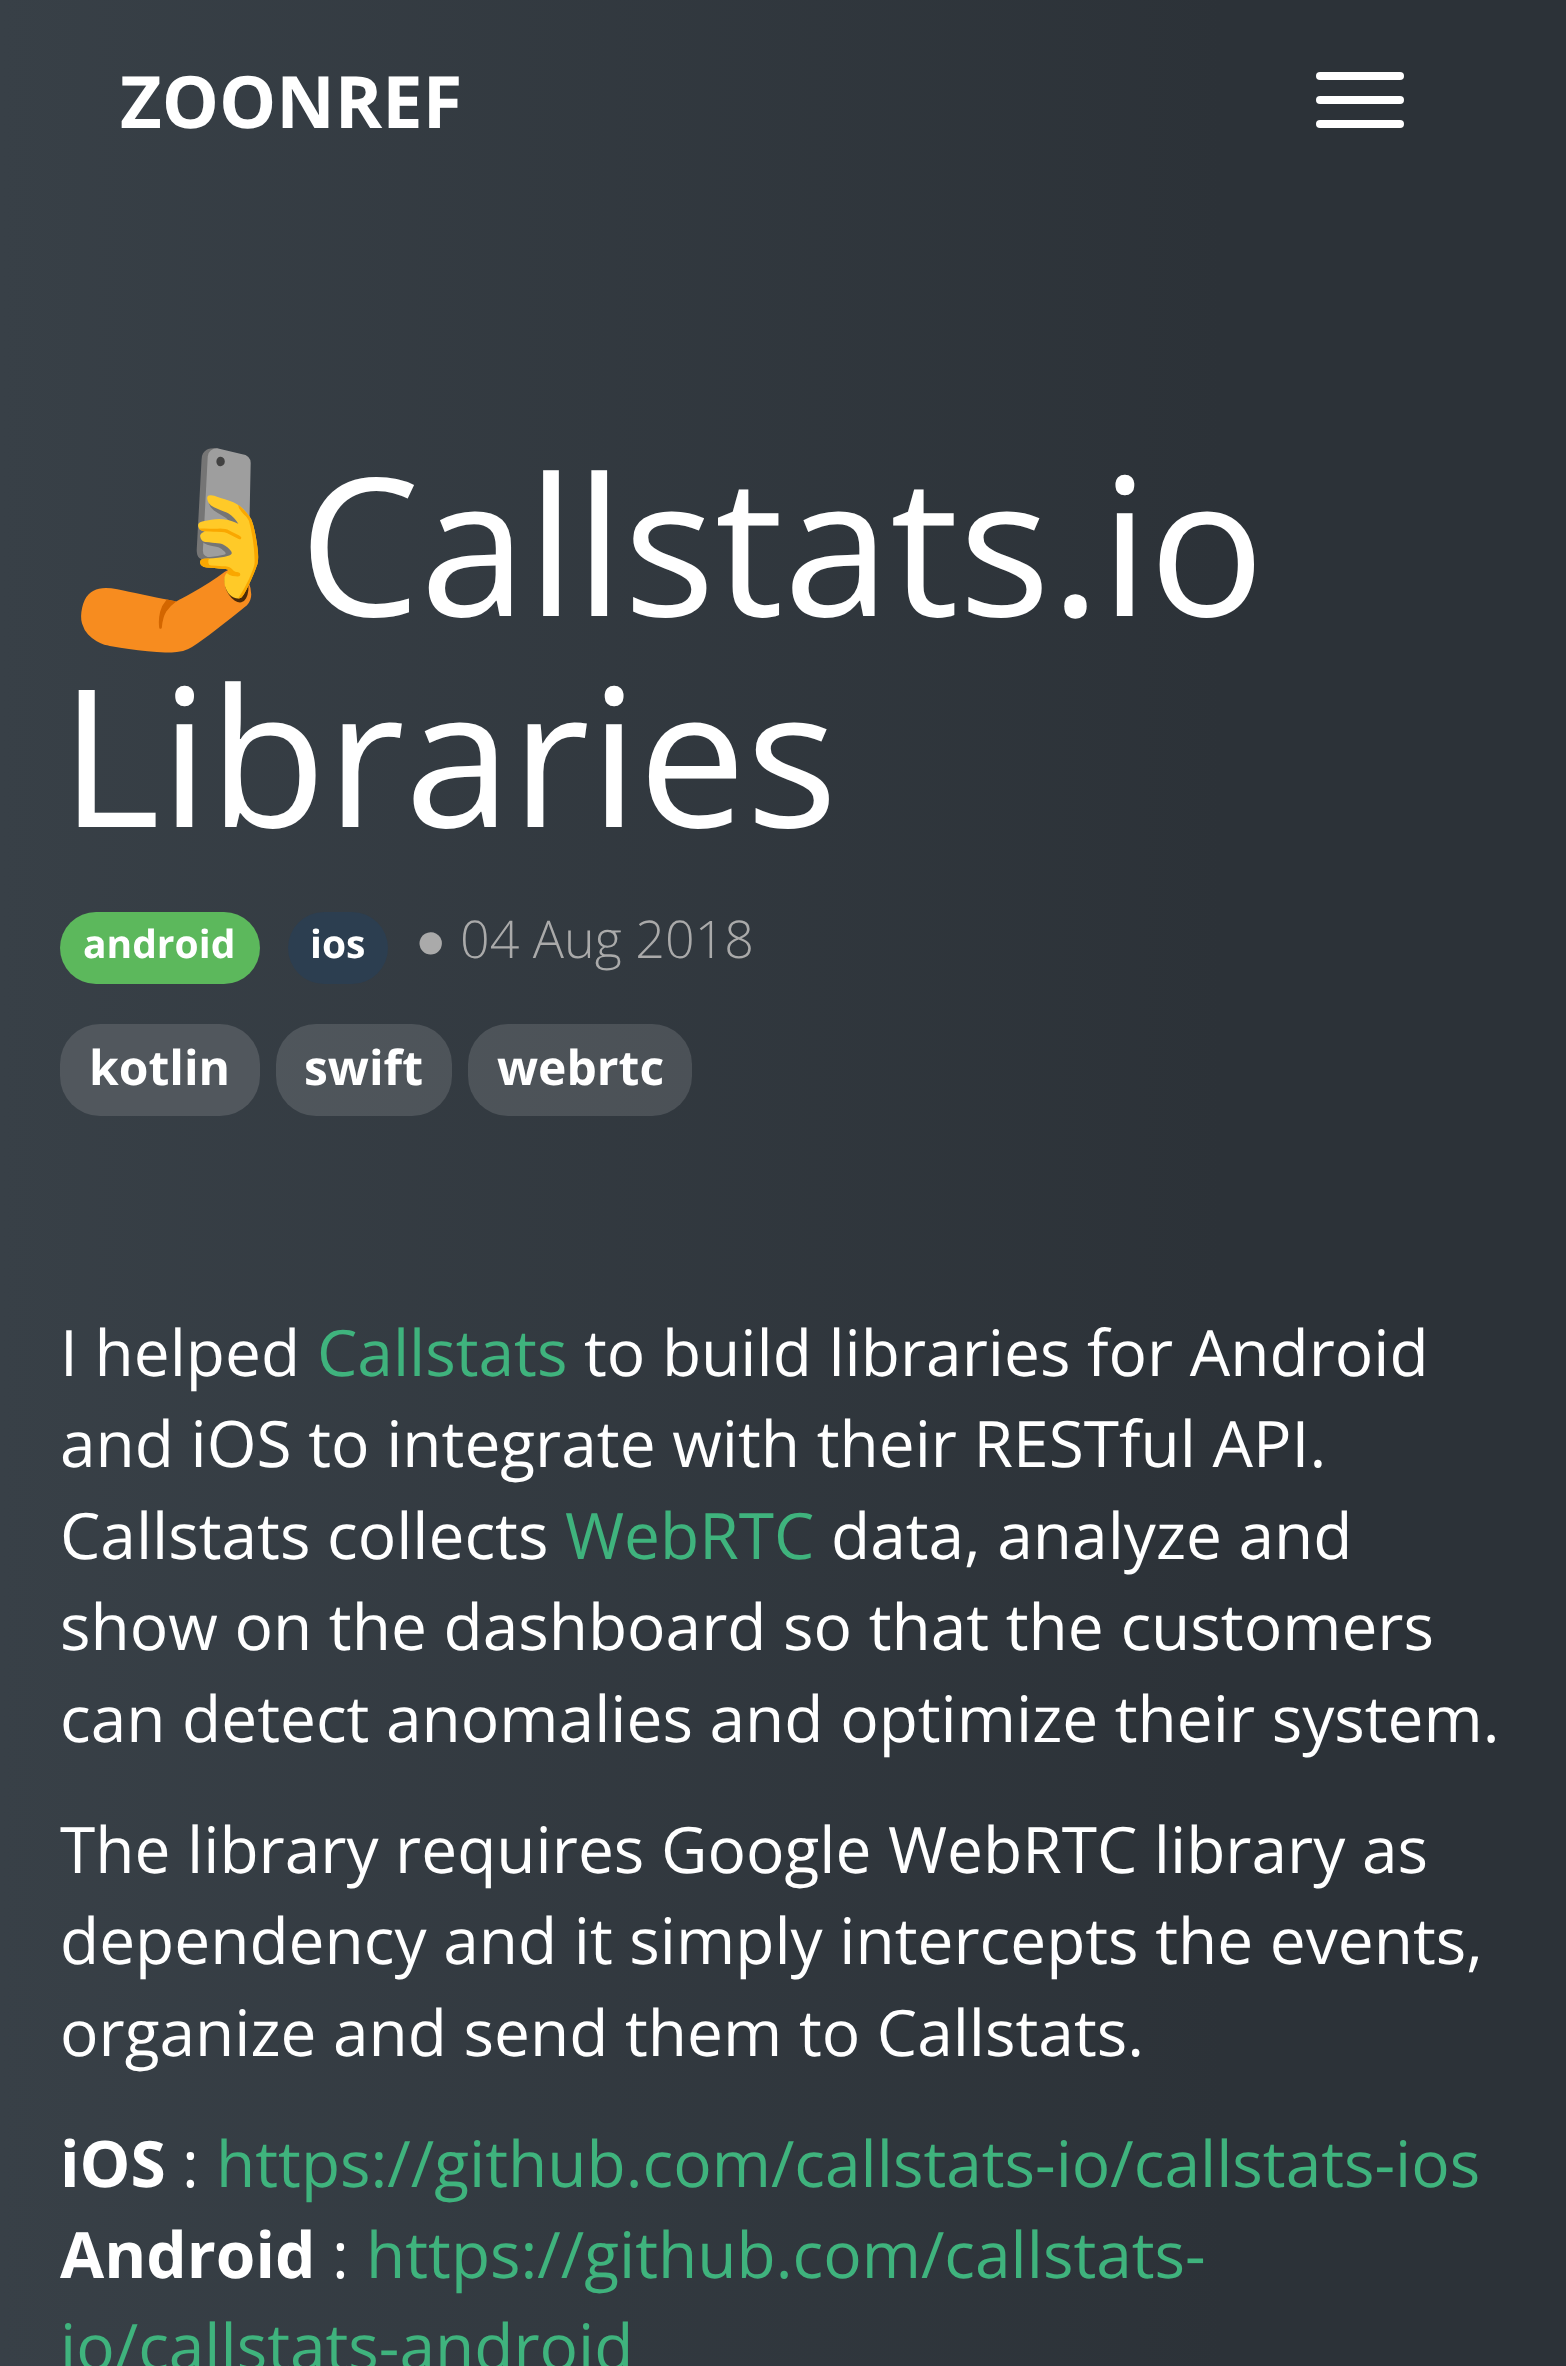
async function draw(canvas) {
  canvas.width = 1566
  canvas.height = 2366
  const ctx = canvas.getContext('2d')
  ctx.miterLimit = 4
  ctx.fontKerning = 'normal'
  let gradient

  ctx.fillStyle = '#fff'
  ctx.fillRect(0, 0, 1566, 2366)
  gradient = ctx.createLinearGradient(0, 1184, 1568, 1184)
  gradient.addColorStop(0, '#384047')
  gradient.addColorStop(0.78, '#2c3238')
  ctx.fillStyle = gradient
  ctx.fillRect(0, 0, 1566, 2366)
  ctx.font = 'bold 72px Open Sans'
  ctx.fillStyle = '#fff'
  ctx.fillText('ZOONREF', 120, 128)
  ctx.beginPath()
  ctx.roundRect(1316, 72, 88, 8, 4)
  ctx.fill()
  ctx.beginPath()
  ctx.roundRect(1316, 96, 88, 8, 4)
  ctx.fill()
  ctx.beginPath()
  ctx.roundRect(1316, 120, 88, 8, 4)
  ctx.fill()
  ctx.font = '192px Noto Color Emoji'
  ctx.fillText('🤳', 60, 616)
  ctx.font = '192px Open Sans'
  ctx.fillText('Callstats.io', 299, 616)
  ctx.fillText('Libraries', 60, 827)
  ctx.fillStyle = '#5cb85c'
  ctx.beginPath()
  ctx.roundRect(60, 912, 200, 72, 36)
  ctx.fill()
  ctx.font = 'bold 39px Open Sans'
  ctx.fillStyle = '#fff'
  ctx.fillText('android', 83, 958)
  ctx.fillStyle = '#2c3e50'
  ctx.beginPath()
  ctx.roundRect(288, 912, 100, 72, 36)
  ctx.fill()
  ctx.fillStyle = '#fff'
  ctx.fillText('ios', 310, 958)
  ctx.font = '52px Liberation Sans'
  ctx.fillStyle = '#aaa'
  ctx.fillText('●', 415, 958)
  ctx.font = '300 52px Open Sans'
  ctx.fillText('04 Aug 2018', 460, 958)
  ctx.fillStyle = '#51575d'
  ctx.beginPath()
  ctx.roundRect(60, 1024, 200, 92, 40)
  ctx.fill()
  ctx.font = 'bold 48px Open Sans'
  ctx.fillStyle = '#fff'
  ctx.fillText('kotlin', 89, 1085)
  ctx.fillStyle = '#ffffff21'
  ctx.beginPath()
  ctx.roundRect(276, 1024, 176, 92, 40)
  ctx.fill()
  ctx.fillStyle = '#fff'
  ctx.fillText('swift', 304, 1085)
  ctx.fillStyle = '#ffffff21'
  ctx.beginPath()
  ctx.roundRect(468, 1024, 224, 92, 40)
  ctx.fill()
  ctx.fillStyle = '#fff'
  ctx.fillText('webrtc', 497, 1085)
  ctx.font = '64px Open Sans'
  ctx.fillText('I helped', 60, 1376)
  ctx.fillStyle = '#3fb37d'
  ctx.fillText('Callstats', 317, 1376)
  ctx.fillStyle = '#fff'
  ctx.fillText('to build libraries for Android', 584, 1376)
  ctx.fillText('and iOS to integrate with their RESTful API.', 60, 1467)
  ctx.fillText('Callstats collects', 60, 1559)
  ctx.fillStyle = '#3fb37d'
  ctx.fillText('WebRTC', 565, 1559)
  ctx.fillStyle = '#fff'
  ctx.fillText('data, analyze and', 831, 1559)
  ctx.fillText('show on the dashboard so that the customers', 60, 1650)
  ctx.fillText('can detect anomalies and optimize their system.', 60, 1742)
  ctx.fillText('The library requires Google WebRTC library as', 60, 1873)
  ctx.fillText('dependency and it simply intercepts the events,', 60, 1964)
  ctx.fillText('organize and send them to Callstats.', 60, 2056)
  ctx.font = 'bold 64px Open Sans'
  ctx.fillText('iOS', 60, 2187)
  ctx.font = '64px Open Sans'
  ctx.fillText(':', 182, 2187)
  ctx.fillStyle = '#3fb37d'
  ctx.fillText('https://github.com/callstats-io/callstats-ios', 216, 2187)
  ctx.font = 'bold 64px Open Sans'
  ctx.fillStyle = '#fff'
  ctx.fillText('Android', 60, 2278)
  ctx.font = '64px Open Sans'
  ctx.fillText(':', 332, 2278)
  ctx.fillStyle = '#3fb37d'
  ctx.fillText('https://github.com/callstats-', 366, 2278)
  ctx.fillText('io/callstats-android', 60, 2370)
}

draw(document.querySelector('canvas'))
